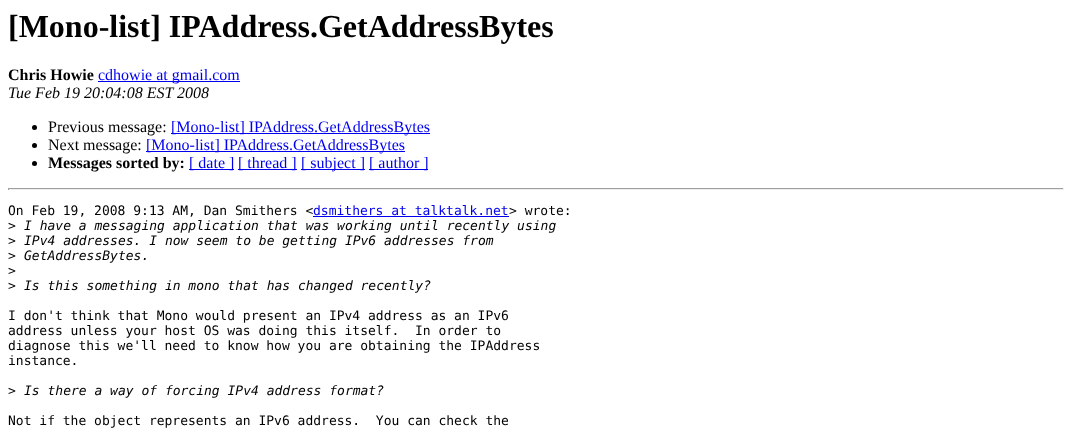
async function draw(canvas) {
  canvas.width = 1072
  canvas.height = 432
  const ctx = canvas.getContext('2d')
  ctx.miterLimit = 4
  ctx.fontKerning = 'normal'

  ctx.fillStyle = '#fff'
  ctx.fillRect(0, 0, 1072, 432)
  ctx.font = 'bold 32px Liberation Serif'
  ctx.fillStyle = '#000'
  ctx.fillText('[Mono-list] IPAddress.GetAddressBytes', 8, 37)
  ctx.font = 'bold 16px Liberation Serif'
  ctx.fillText('Chris Howie', 8, 80)
  ctx.fillStyle = '#00e'
  ctx.fillRect(98, 81, 142, 1)
  ctx.font = '16px Liberation Serif'
  ctx.fillText('cdhowie at gmail.com', 98, 80)
  ctx.font = 'italic 16px Liberation Serif'
  ctx.fillStyle = '#000'
  ctx.fillText('Tue Feb 19 20:04:08 EST 2008', 8, 98)
  ctx.beginPath()
  ctx.arc(34.5, 127.5, 2.5, 0, 2 * Math.PI)
  ctx.fill()
  ctx.font = '16px Liberation Serif'
  ctx.fillText('Previous message:', 48, 132)
  ctx.fillStyle = '#00e'
  ctx.fillRect(171, 133, 259, 1)
  ctx.fillText('[Mono-list] IPAddress.GetAddressBytes', 171, 132)
  ctx.fillStyle = '#000'
  ctx.beginPath()
  ctx.arc(34.5, 145.5, 2.5, 0, 2 * Math.PI)
  ctx.fill()
  ctx.fillText('Next message:', 48, 150)
  ctx.fillStyle = '#00e'
  ctx.fillRect(146, 151, 259, 1)
  ctx.fillText('[Mono-list] IPAddress.GetAddressBytes', 146, 150)
  ctx.fillStyle = '#000'
  ctx.beginPath()
  ctx.arc(34.5, 163.5, 2.5, 0, 2 * Math.PI)
  ctx.fill()
  ctx.font = 'bold 16px Liberation Serif'
  ctx.fillText('Messages sorted by:', 48, 168)
  ctx.fillStyle = '#00e'
  ctx.fillRect(189, 169, 45, 1)
  ctx.font = '16px Liberation Serif'
  ctx.fillText('[ date ]', 189, 168)
  ctx.fillRect(238, 169, 59, 1)
  ctx.fillText('[ thread ]', 238, 168)
  ctx.fillRect(301, 169, 64, 1)
  ctx.fillText('[ subject ]', 301, 168)
  ctx.fillRect(369, 169, 59, 1)
  ctx.fillText('[ author ]', 369, 168)
  ctx.fillStyle = '#9f9f9f'
  ctx.fillRect(8, 188, 1056, 1)
  ctx.fillStyle = '#eee'
  ctx.fillRect(1063, 188, 1, 2)
  ctx.fillRect(8, 189, 1056, 1)
  ctx.fillStyle = '#9f9f9f'
  ctx.fillRect(8, 188, 1, 2)
  ctx.font = '13px DejaVu Sans Mono'
  ctx.fillStyle = '#000'
  ctx.fillText('On Feb 19, 2008 9:13 AM, Dan Smithers <', 8, 215)
  ctx.fillStyle = '#00e'
  ctx.fillText('dsmithers at talktalk.net', 313, 215)
  ctx.fillRect(313, 216, 196, 1)
  ctx.fillStyle = '#000'
  ctx.fillText('> wrote:', 509, 215)
  ctx.fillText('>', 8, 230)
  ctx.font = 'italic 13px DejaVu Sans Mono'
  ctx.fillText('I have a messaging application that was working until recently using', 24, 230)
  ctx.font = '13px DejaVu Sans Mono'
  ctx.fillText('>', 8, 245)
  ctx.font = 'italic 13px DejaVu Sans Mono'
  ctx.fillText('IPv4 addresses. I now seem to be getting IPv6 addresses from', 24, 245)
  ctx.font = '13px DejaVu Sans Mono'
  ctx.fillText('>', 8, 260)
  ctx.font = 'italic 13px DejaVu Sans Mono'
  ctx.fillText('GetAddressBytes.', 24, 260)
  ctx.font = '13px DejaVu Sans Mono'
  ctx.fillText('>', 8, 275)
  ctx.fillText('>', 8, 290)
  ctx.font = 'italic 13px DejaVu Sans Mono'
  ctx.fillText('Is this something in mono that has changed recently?', 24, 290)
  ctx.font = '13px DejaVu Sans Mono'
  ctx.fillText('I don\'t think that Mono would present an IPv4 address as an IPv6', 8, 320)
  ctx.fillText('address unless your host OS was doing this itself.  In order to', 8, 335)
  ctx.fillText('diagnose this we\'ll need to know how you are obtaining the IPAddress', 8, 350)
  ctx.fillText('instance.', 8, 365)
  ctx.fillText('>', 8, 395)
  ctx.font = 'italic 13px DejaVu Sans Mono'
  ctx.fillText('Is there a way of forcing IPv4 address format?', 24, 395)
  ctx.font = '13px DejaVu Sans Mono'
  ctx.fillText('Not if the object represents an IPv6 address.  You can check the', 8, 425)
}

draw(document.querySelector('canvas'))
